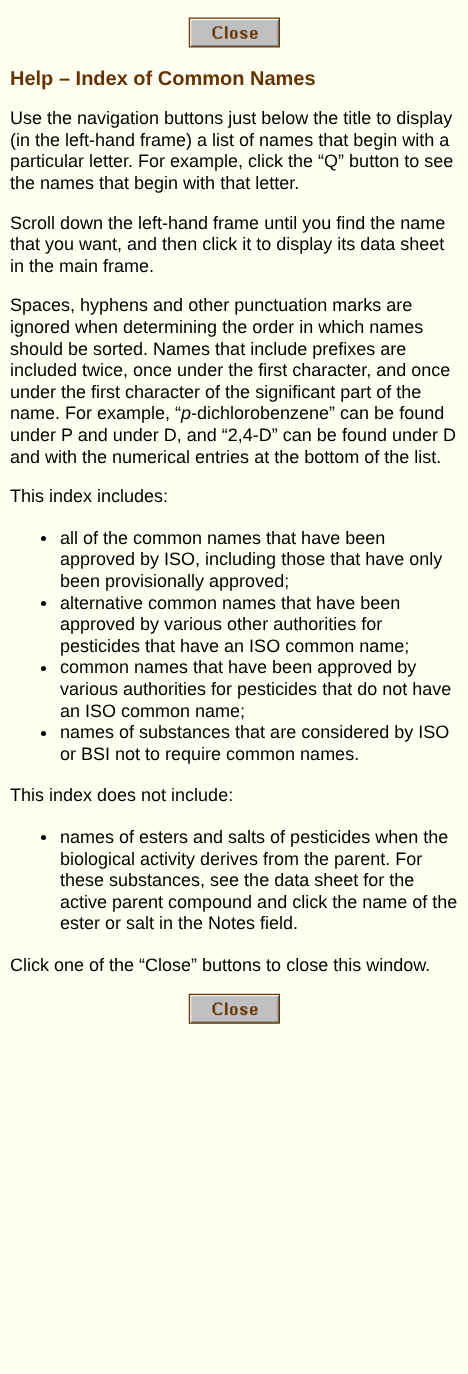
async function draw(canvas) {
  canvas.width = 468
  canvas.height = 1374
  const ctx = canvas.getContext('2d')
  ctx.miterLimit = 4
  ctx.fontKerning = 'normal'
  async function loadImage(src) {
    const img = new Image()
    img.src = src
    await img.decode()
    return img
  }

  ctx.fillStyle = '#fffff2'
  ctx.fillRect(0, 0, 468, 1374)
  ctx.drawImage(await loadImage('image0.png'), 188, 17, 92, 31)
  ctx.font = 'bold 20px Liberation Sans'
  ctx.fillStyle = '#630'
  ctx.fillText('Help – Index of Common Names', 10, 85)
  ctx.font = '18px Liberation Sans'
  ctx.fillStyle = '#000'
  ctx.fillText('Use the navigation buttons just below the title to display', 10, 124)
  ctx.fillText('(in the left-hand frame) a list of names that begin with a', 10, 146)
  ctx.fillText('particular letter. For example, click the “Q” button to see', 10, 167)
  ctx.fillText('the names that begin with that letter.', 10, 189)
  ctx.fillText('Scroll down the left-hand frame until you find the name', 10, 229)
  ctx.fillText('that you want, and then click it to display its data sheet', 10, 250)
  ctx.fillText('in the main frame.', 10, 272)
  ctx.fillText('Spaces, hyphens and other punctuation marks are', 10, 311)
  ctx.fillText('ignored when determining the order in which names', 10, 333)
  ctx.fillText('should be sorted. Names that include prefixes are', 10, 355)
  ctx.fillText('included twice, once under the first character, and once', 10, 376)
  ctx.fillText('under the first character of the significant part of the', 10, 398)
  ctx.fillText('name. For example, “', 10, 419)
  ctx.font = 'italic 18px Liberation Sans'
  ctx.fillText('p', 181, 419)
  ctx.font = '18px Liberation Sans'
  ctx.fillText('-dichlorobenzene” can be found', 191, 419)
  ctx.fillText('under P and under D, and “2,4-D” can be found under D', 10, 441)
  ctx.fillText('and with the numerical entries at the bottom of the list.', 10, 463)
  ctx.fillText('This index includes:', 10, 502)
  ctx.beginPath()
  ctx.arc(43.5, 538.5, 2.5, 0, 2 * Math.PI)
  ctx.fill()
  ctx.fillText('all of the common names that have been', 60, 544)
  ctx.fillText('approved by ISO, including those that have only', 60, 565)
  ctx.fillText('been provisionally approved;', 60, 587)
  ctx.beginPath()
  ctx.arc(43.5, 603.5, 2.5, 0, 2 * Math.PI)
  ctx.fill()
  ctx.fillText('alternative common names that have been', 60, 609)
  ctx.fillText('approved by various other authorities for', 60, 630)
  ctx.fillText('pesticides that have an ISO common name;', 60, 652)
  ctx.beginPath()
  ctx.arc(43.5, 668.5, 2.5, 0, 2 * Math.PI)
  ctx.fill()
  ctx.fillText('common names that have been approved by', 60, 673)
  ctx.fillText('various authorities for pesticides that do not have', 60, 695)
  ctx.fillText('an ISO common name;', 60, 717)
  ctx.beginPath()
  ctx.arc(43.5, 733.5, 2.5, 0, 2 * Math.PI)
  ctx.fill()
  ctx.fillText('names of substances that are considered by ISO', 60, 738)
  ctx.fillText('or BSI not to require common names.', 60, 760)
  ctx.fillText('This index does not include:', 10, 801)
  ctx.beginPath()
  ctx.arc(43.5, 837.5, 2.5, 0, 2 * Math.PI)
  ctx.fill()
  ctx.fillText('names of esters and salts of pesticides when the', 60, 843)
  ctx.fillText('biological activity derives from the parent. For', 60, 865)
  ctx.fillText('these substances, see the data sheet for the', 60, 886)
  ctx.fillText('active parent compound and click the name of the', 60, 908)
  ctx.fillText('ester or salt in the Notes field.', 60, 929)
  ctx.fillText('Click one of the “Close” buttons to close this window.', 10, 971)
  ctx.drawImage(await loadImage('image1.png'), 188, 993, 92, 31)
}

draw(document.querySelector('canvas'))
